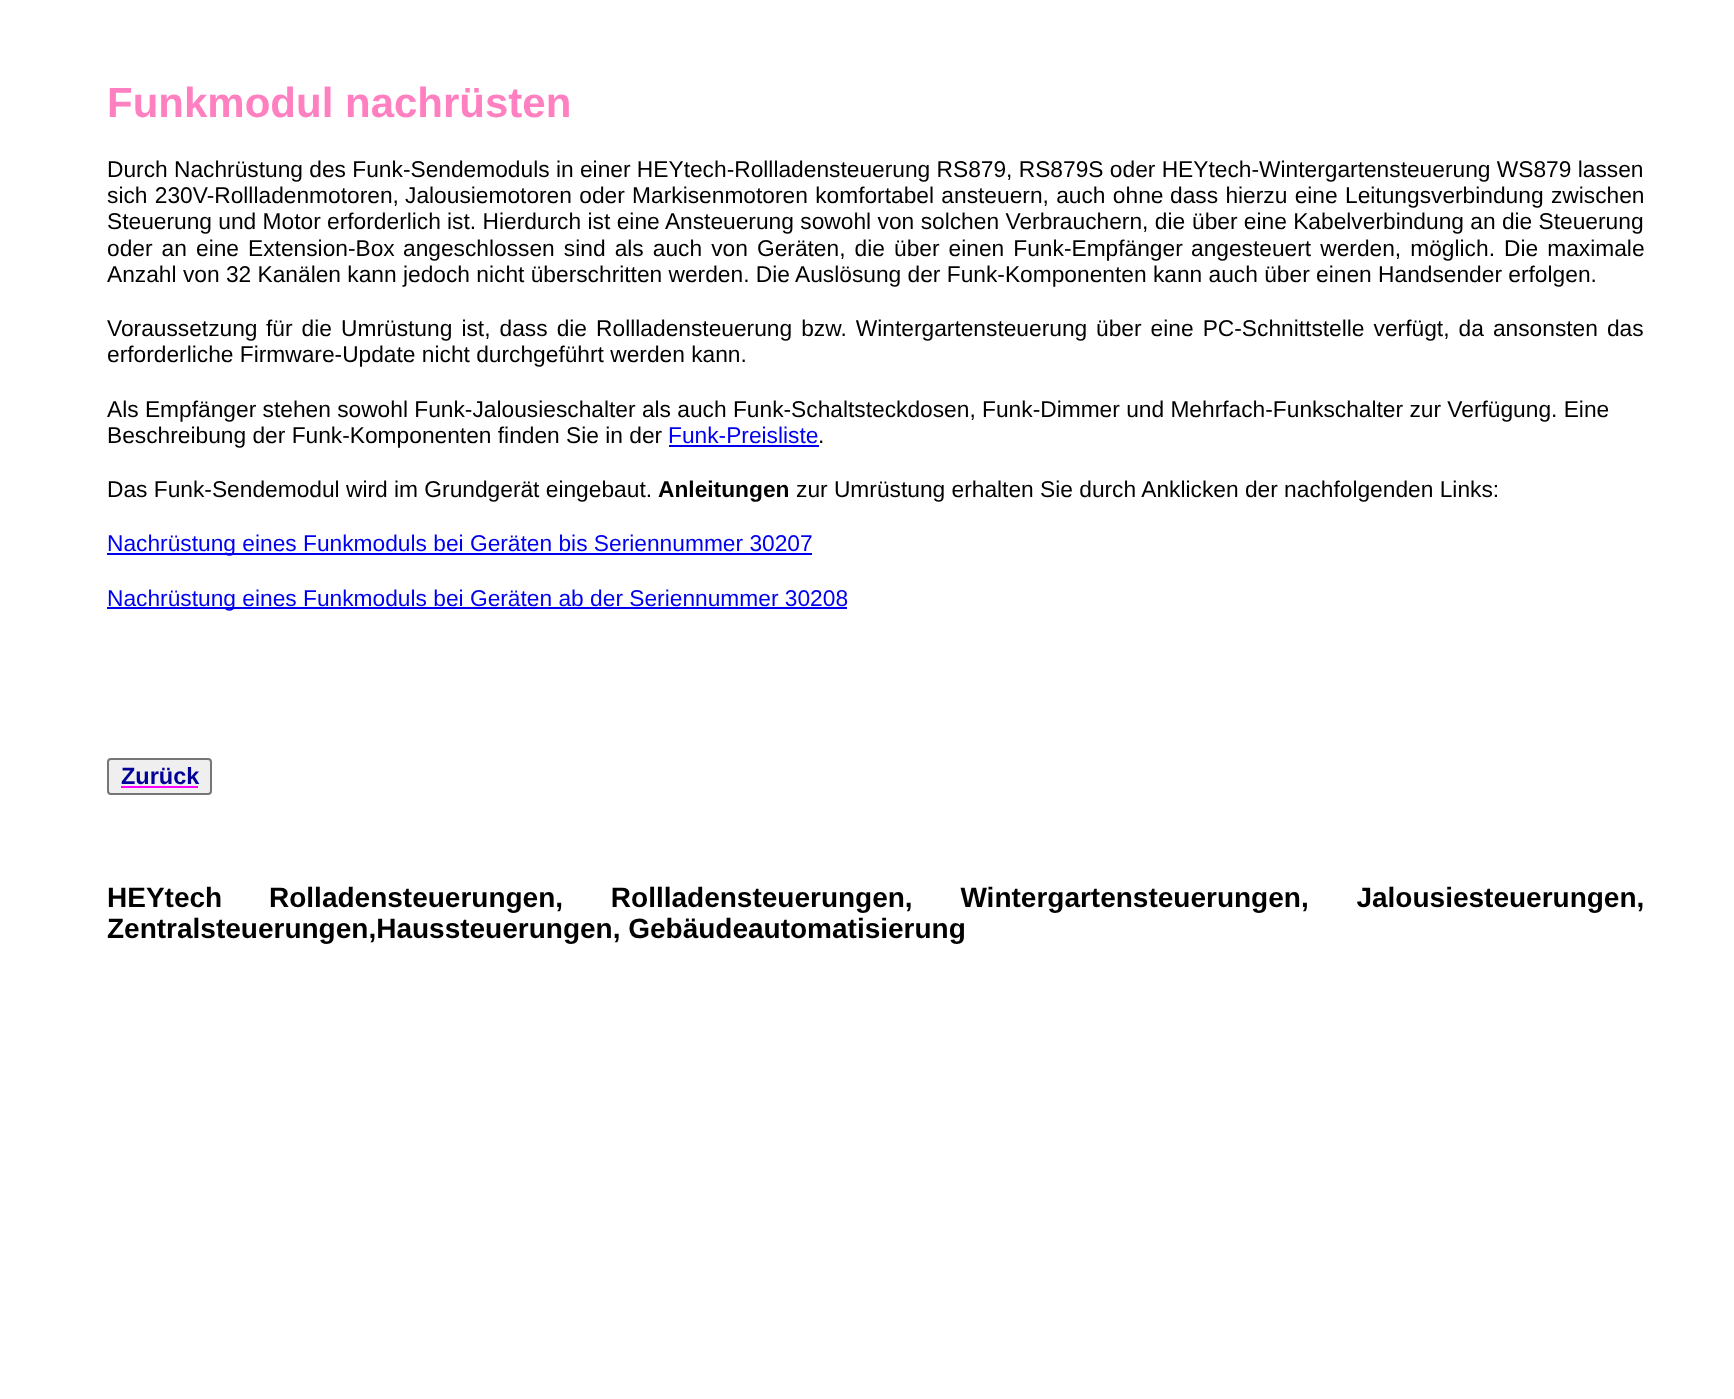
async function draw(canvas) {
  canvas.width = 1734
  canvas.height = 1399
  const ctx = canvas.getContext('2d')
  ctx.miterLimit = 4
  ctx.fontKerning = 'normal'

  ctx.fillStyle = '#fff'
  ctx.fillRect(0, 0, 1734, 1399)
  ctx.font = 'bold 42px Liberation Sans'
  ctx.fillStyle = '#ff80c0'
  ctx.fillText('Funkmodul nachrüsten', 107, 117)
  ctx.font = '22.75px Liberation Sans'
  ctx.fillStyle = '#000'
  ctx.fillText('Durch Nachrüstung des Funk-Sendemoduls in einer HEYtech-Rollladensteuerung RS879, RS879S oder HEYtech-Wintergartensteuerung WS879 lassen', 107, 177)
  ctx.wordSpacing = '1px'
  ctx.fillText('sich 230V-Rollladenmotoren,', 107, 203)
  ctx.fillText('Jalousiemotoren oder Markisenmotoren komfortabel ansteuern, auch ohne', 405, 203)
  ctx.fillText('dass hierzu eine Leitungsverbindung zwischen', 1170, 203)
  ctx.wordSpacing = '0px'
  ctx.fillText('Steuerung und Motor erforderlich', 107, 229)
  ctx.wordSpacing = '0.1px'
  ctx.fillText('ist. Hierdurch ist eine Ansteuerung sowohl von solchen Verbrauchern, die', 447, 229)
  ctx.wordSpacing = '0px'
  ctx.fillText('über eine Kabelverbindung an die Steuerung', 1192, 229)
  ctx.wordSpacing = '2.75px'
  ctx.fillText('oder an eine Extension-Box', 107, 256)
  ctx.fillText('angeschlossen sind als auch von Geräten, die über einen Funk-Empfänger', 403, 256)
  ctx.fillText('angesteuert werden, möglich. Die maximale', 1191, 256)
  ctx.wordSpacing = '0px'
  ctx.fillText('Anzahl von 32 Kanälen kann jedoch nicht überschritten werden. Die', 107, 282)
  ctx.fillText('Auslösung der Funk-Komponenten kann auch über einen Handsender erfolgen.', 795, 282)
  ctx.fillText('Voraussetzung', 107, 336)
  ctx.wordSpacing = '2.75px'
  ctx.fillText('für die Umrüstung ist, dass die Rollladensteuerung bzw. Wintergartensteuerung', 266, 336)
  ctx.fillText('über eine PC-Schnittstelle verfügt, da ansonsten das', 1096, 336)
  ctx.wordSpacing = '0px'
  ctx.fillText('erforderliche Firmware-Update nicht durchgeführt werden kann.', 107, 362)
  ctx.fillText('Als Empfänger stehen sowohl Funk-Jalousieschalter als auch Funk-Schaltsteckdosen, Funk-Dimmer und Mehrfach-Funkschalter zur Verfügung. Eine', 107, 417)
  ctx.fillText('Beschreibung der Funk-Komponenten finden Sie in der', 107, 443)
  ctx.fillStyle = '#00e'
  ctx.fillText('Funk-Preisliste', 668, 443)
  ctx.fillStyle = '#000'
  ctx.fillText('.', 818, 443)
  ctx.fillStyle = '#00e'
  ctx.fillRect(669, 445, 150, 2)
  ctx.fillStyle = '#000'
  ctx.fillText('Das Funk-Sendemodul wird im Grundgerät eingebaut.', 107, 497)
  ctx.font = 'bold 22.75px Liberation Sans'
  ctx.fillText('Anleitungen', 658, 497)
  ctx.font = '22.75px Liberation Sans'
  ctx.fillText('zur Umrüstung erhalten Sie durch Anklicken der nachfolgenden Links:', 796, 497)
  ctx.fillStyle = '#00e'
  ctx.fillRect(107, 553, 705, 2)
  ctx.fillText('Nachrüstung eines Funkmoduls bei Geräten bis Seriennummer 30207', 107, 551)
  ctx.fillRect(107, 607, 740, 2)
  ctx.fillText('Nachrüstung eines Funkmoduls bei Geräten ab der Seriennummer 30208', 107, 606)
  ctx.fillStyle = '#efefef'
  ctx.beginPath()
  ctx.roundRect(108, 759, 103, 35, 3)
  ctx.fill()
  ctx.strokeStyle = '#767676'
  ctx.lineWidth = 2
  ctx.stroke()
  ctx.font = 'bold 23.5px Liberation Sans'
  ctx.fillStyle = '#009'
  ctx.fillText('Zurück', 121, 784)
  ctx.fillStyle = '#f0f'
  ctx.fillRect(121, 786, 77, 2)
  ctx.font = 'bold 28px Liberation Sans'
  ctx.fillStyle = '#000'
  ctx.fillText('HEYtech', 107, 907)
  ctx.wordSpacing = '40px'
  ctx.fillText('Rolladensteuerungen, Rollladensteuerungen, Wintergartensteuerungen, Jalousiesteuerungen,', 269, 907)
  ctx.wordSpacing = '0px'
  ctx.fillText('Zentralsteuerungen,Haussteuerungen, Gebäudeautomatisierung', 107, 938)
}

draw(document.querySelector('canvas'))
